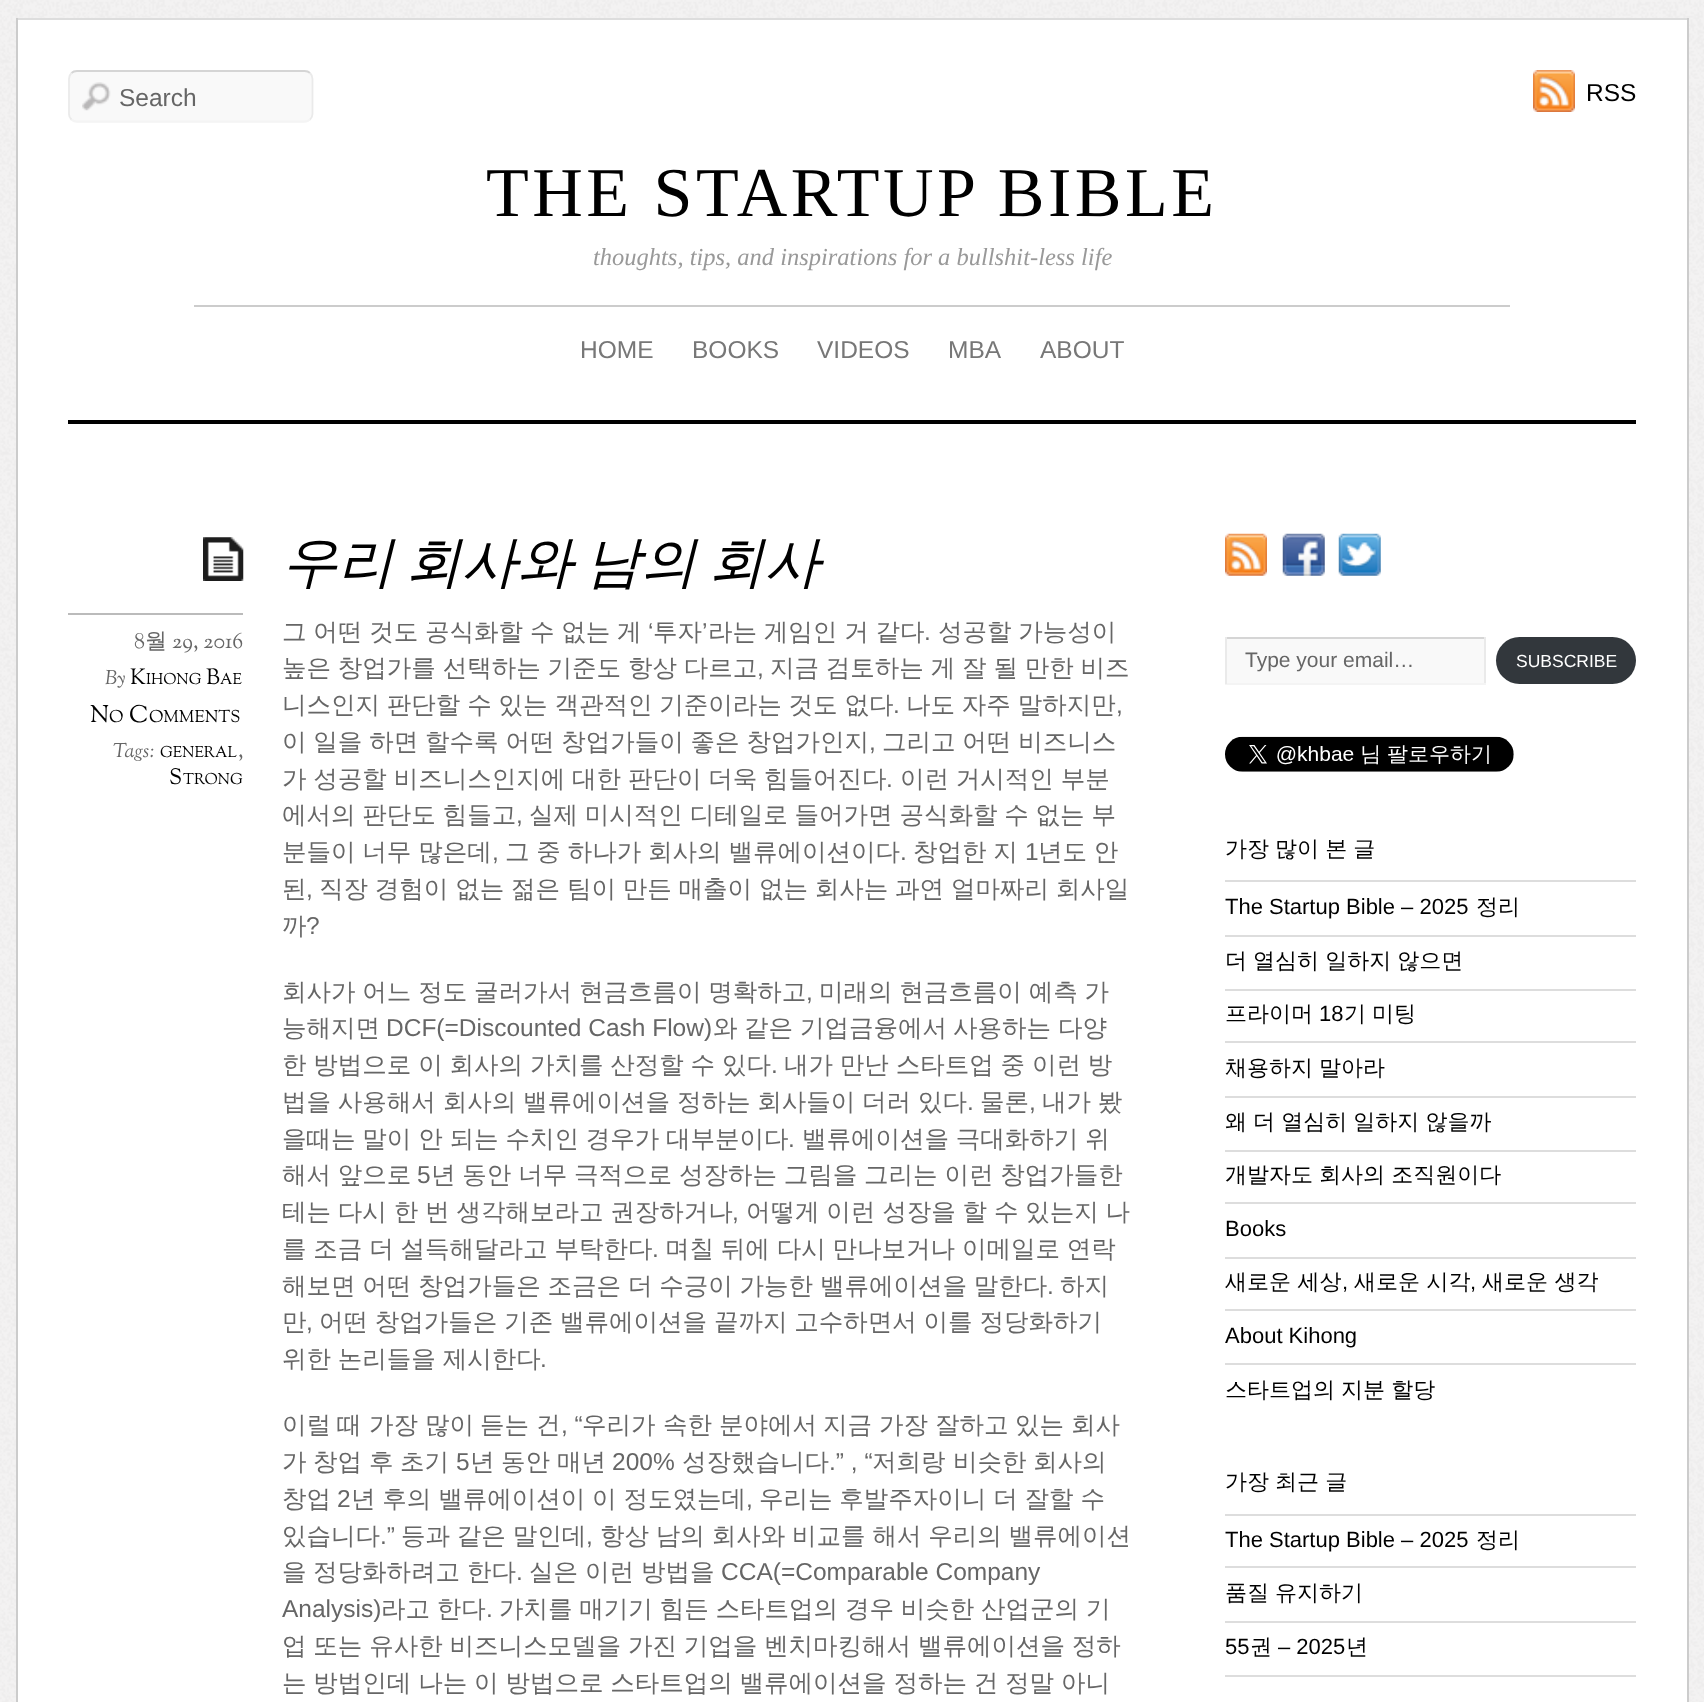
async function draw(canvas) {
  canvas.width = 1704
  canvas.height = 1702
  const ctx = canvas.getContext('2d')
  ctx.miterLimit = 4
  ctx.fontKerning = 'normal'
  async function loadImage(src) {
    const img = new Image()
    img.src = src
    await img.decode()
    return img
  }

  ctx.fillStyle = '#f4f3f3'
  ctx.fillRect(0, 0, 1704, 1702)
  ctx.drawImage(await loadImage('image0.png'), 0, 0, 1704, 1702)
  ctx.fillStyle = '#fff'
  ctx.fillRect(18, 20, 1669, 1682)
  ctx.fillStyle = '#ddd'
  ctx.fillRect(16, 18, 1673, 2)
  ctx.fillStyle = '#ccc'
  ctx.fillRect(1687, 18, 2, 1684)
  ctx.fillRect(16, 18, 2, 1684)
  ctx.fillStyle = '#000'
  ctx.fillRect(68, 420, 1568, 4)
  ctx.fillStyle = '#f9f9f9'
  ctx.beginPath()
  ctx.roundRect(68, 70, 245, 53, 9)
  ctx.fill()
  ctx.drawImage(await loadImage('image1.png'), 82, 82, 29, 29)
  ctx.beginPath()
  ctx.moveTo(71.5, 73)
  ctx.bezierCurveTo(73, 71.5, 75, 71, 77, 71)
  ctx.lineTo(304.5, 71)
  ctx.bezierCurveTo(306.5, 71, 308.5, 71.5, 310, 73)
  ctx.strokeStyle = '#d5d5d5'
  ctx.lineWidth = 1.8
  ctx.stroke()
  ctx.beginPath()
  ctx.moveTo(310, 73)
  ctx.bezierCurveTo(311.5, 74.5, 312.5, 76.5, 312.5, 79)
  ctx.lineTo(312.5, 114)
  ctx.bezierCurveTo(312.5, 116, 311.5, 118, 310, 119.5)
  ctx.strokeStyle = '#eaeaea'
  ctx.stroke()
  ctx.beginPath()
  ctx.moveTo(310, 119.5)
  ctx.bezierCurveTo(308.5, 121, 306.5, 121.5, 304.5, 121.5)
  ctx.lineTo(77, 121.5)
  ctx.bezierCurveTo(75, 121.5, 73, 121, 71.5, 119.5)
  ctx.strokeStyle = '#f4f4f4'
  ctx.stroke()
  ctx.beginPath()
  ctx.moveTo(71.5, 119.5)
  ctx.bezierCurveTo(70, 118, 69, 116, 69, 114)
  ctx.lineTo(69, 79)
  ctx.bezierCurveTo(69, 76.5, 70, 74.5, 71.5, 73)
  ctx.strokeStyle = '#eaeaea'
  ctx.stroke()
  ctx.font = '24.5px Liberation Sans'
  ctx.fillStyle = '#666'
  ctx.fillText('Search', 119, 106)
  ctx.drawImage(await loadImage('image2.png'), 1533, 70, 42, 42)
  ctx.fillStyle = '#000'
  ctx.fillText('RSS', 1586, 101)
  ctx.letterSpacing = '3.5px'
  ctx.font = '70px Liberation Serif'
  ctx.fillText('THE STARTUP BIBLE', 486, 216)
  ctx.letterSpacing = '0px'
  ctx.font = 'italic 24.5px Liberation Serif'
  ctx.fillStyle = '#999'
  ctx.fillText('thoughts, tips, and inspirations for a bullshit-less life', 593, 265)
  ctx.fillStyle = '#ccc'
  ctx.fillRect(194, 305, 1316, 2)
  ctx.font = '24.5px Liberation Sans'
  ctx.fillStyle = '#777'
  ctx.fillText('HOME', 580, 358)
  ctx.fillText('BOOKS', 692, 358)
  ctx.fillText('VIDEOS', 817, 358)
  ctx.fillText('MBA', 948, 358)
  ctx.fillText('ABOUT', 1040, 358)
  ctx.drawImage(await loadImage('image3.png'), 203, 537, 41, 44)
  ctx.fillStyle = '#bbb'
  ctx.fillRect(68, 613, 175, 2)
  ctx.wordSpacing = '-5px'
  ctx.font = 'italic 500 55.9px WenQuanYi Zen Hei'
  ctx.fillStyle = '#000'
  ctx.fillText('우리 회사와 남의 회사', 282, 581)
  ctx.wordSpacing = '0px'
  ctx.font = '500 22px OFL Sorts Mill Goudy TT'
  ctx.fillStyle = '#666'
  ctx.fillText('8', 134, 648)
  ctx.font = '500 22px WenQuanYi Zen Hei'
  ctx.fillText('월', 145, 648)
  ctx.font = '500 22px OFL Sorts Mill Goudy TT'
  ctx.fillText('29, 2016', 172, 648)
  ctx.font = 'italic 500 20px OFL Sorts Mill Goudy TT'
  ctx.fillText('By', 105, 684)
  ctx.font = '500 22px OFL Sorts Mill Goudy TT'
  ctx.fillStyle = '#000'
  ctx.fillText('K', 130, 684)
  ctx.font = '500 15.5px OFL Sorts Mill Goudy TT'
  ctx.fillText('IHONG', 146, 684)
  ctx.font = '500 22px OFL Sorts Mill Goudy TT'
  ctx.fillText('B', 206, 684)
  ctx.font = '500 15.5px OFL Sorts Mill Goudy TT'
  ctx.fillText('AE', 220, 684)
  ctx.font = '500 24px OFL Sorts Mill Goudy TT'
  ctx.fillText('N', 90, 722)
  ctx.font = '500 17px OFL Sorts Mill Goudy TT'
  ctx.fillText('O', 109, 722)
  ctx.font = '500 24px OFL Sorts Mill Goudy TT'
  ctx.fillText('C', 129, 722)
  ctx.font = '500 17px OFL Sorts Mill Goudy TT'
  ctx.fillText('OMMENTS', 149, 722)
  ctx.font = 'italic 500 20px OFL Sorts Mill Goudy TT'
  ctx.fillStyle = '#666'
  ctx.fillText('Tags:', 113, 757)
  ctx.font = '500 15.5px OFL Sorts Mill Goudy TT'
  ctx.fillStyle = '#000'
  ctx.fillText('GENERAL', 160, 757)
  ctx.font = '500 22px OFL Sorts Mill Goudy TT'
  ctx.fillStyle = '#666'
  ctx.fillText(',', 238, 757)
  ctx.fillStyle = '#000'
  ctx.fillText('S', 169, 784)
  ctx.font = '500 15.5px OFL Sorts Mill Goudy TT'
  ctx.fillText('TRONG', 183, 784)
  ctx.wordSpacing = '-0.5px'
  ctx.font = '500 24.5px WenQuanYi Zen Hei'
  ctx.fillStyle = '#666'
  ctx.fillText('그 어떤 것도 공식화할 수 없는 게', 282, 640)
  ctx.wordSpacing = '0px'
  ctx.font = '24.5px Liberation Sans'
  ctx.fillText('‘', 648, 640)
  ctx.font = '500 24.5px WenQuanYi Zen Hei'
  ctx.fillText('투자', 653, 640)
  ctx.font = '24.5px Liberation Sans'
  ctx.fillText('’', 702, 640)
  ctx.wordSpacing = '-0.5px'
  ctx.font = '500 24.5px WenQuanYi Zen Hei'
  ctx.fillText('라는 게임인 거 같다', 708, 640)
  ctx.fillText('성공할 가능성이', 938, 640)
  ctx.wordSpacing = '0px'
  ctx.font = '24.5px Liberation Sans'
  ctx.fillText('.', 924, 640)
  ctx.wordSpacing = '-0.5px'
  ctx.font = '500 24.5px WenQuanYi Zen Hei'
  ctx.fillText('높은 창업가를 선택하는 기준도 항상 다르고', 282, 676)
  ctx.wordSpacing = '0px'
  ctx.font = '24.5px Liberation Sans'
  ctx.fillText(',', 757, 676)
  ctx.wordSpacing = '-0.5px'
  ctx.font = '500 24.5px WenQuanYi Zen Hei'
  ctx.fillText('지금 검토하는 게 잘 될 만한 비즈', 770, 676)
  ctx.fillText('니스인지 판단할 수 있는 객관적인 기준이라는 것도 없다', 282, 713)
  ctx.wordSpacing = '0px'
  ctx.font = '24.5px Liberation Sans'
  ctx.fillText('.', 893, 713)
  ctx.wordSpacing = '-0.5px'
  ctx.font = '500 24.5px WenQuanYi Zen Hei'
  ctx.fillText('나도 자주 말하지만', 906, 713)
  ctx.wordSpacing = '0px'
  ctx.font = '24.5px Liberation Sans'
  ctx.fillText(',', 1116, 713)
  ctx.wordSpacing = '-0.5px'
  ctx.font = '500 24.5px WenQuanYi Zen Hei'
  ctx.fillText('이 일을 하면 할수록 어떤 창업가들이 좋은 창업가인지', 282, 750)
  ctx.wordSpacing = '0px'
  ctx.font = '24.5px Liberation Sans'
  ctx.fillText(',', 869, 750)
  ctx.wordSpacing = '-0.5px'
  ctx.font = '500 24.5px WenQuanYi Zen Hei'
  ctx.fillText('그리고 어떤 비즈니스', 882, 750)
  ctx.fillText('가 성공할 비즈니스인지에 대한 판단이 더욱 힘들어진다', 282, 787)
  ctx.wordSpacing = '0px'
  ctx.font = '24.5px Liberation Sans'
  ctx.fillText('.', 886, 787)
  ctx.wordSpacing = '-0.5px'
  ctx.font = '500 24.5px WenQuanYi Zen Hei'
  ctx.fillText('이런 거시적인 부분', 900, 787)
  ctx.fillText('에서의 판단도 힘들고', 282, 823)
  ctx.wordSpacing = '0px'
  ctx.font = '24.5px Liberation Sans'
  ctx.fillText(',', 516, 823)
  ctx.wordSpacing = '-0.5px'
  ctx.font = '500 24.5px WenQuanYi Zen Hei'
  ctx.fillText('실제 미시적인 디테일로 들어가면 공식화할 수 없는 부', 529, 823)
  ctx.fillText('분들이 너무 많은데', 282, 860)
  ctx.wordSpacing = '0px'
  ctx.font = '24.5px Liberation Sans'
  ctx.fillText(',', 492, 860)
  ctx.wordSpacing = '-0.5px'
  ctx.font = '500 24.5px WenQuanYi Zen Hei'
  ctx.fillText('그 중 하나가 회사의 밸류에이션이다', 505, 860)
  ctx.wordSpacing = '0px'
  ctx.font = '24.5px Liberation Sans'
  ctx.fillText('.', 900, 860)
  ctx.wordSpacing = '-0.5px'
  ctx.font = '500 24.5px WenQuanYi Zen Hei'
  ctx.fillText('창업한 지', 913, 860)
  ctx.wordSpacing = '0px'
  ctx.font = '24.5px Liberation Sans'
  ctx.fillText('1', 1025, 860)
  ctx.wordSpacing = '-0.5px'
  ctx.font = '500 24.5px WenQuanYi Zen Hei'
  ctx.fillText('년도 안', 1038, 860)
  ctx.wordSpacing = '0px'
  ctx.fillText('된', 282, 897)
  ctx.font = '24.5px Liberation Sans'
  ctx.fillText(',', 306, 897)
  ctx.wordSpacing = '-0.5px'
  ctx.font = '500 24.5px WenQuanYi Zen Hei'
  ctx.fillText('직장 경험이 없는 젊은 팀이 만든 매출이 없는 회사는 과연 얼마짜리 회사일', 319, 897)
  ctx.wordSpacing = '0px'
  ctx.fillText('까', 282, 934)
  ctx.font = '24.5px Liberation Sans'
  ctx.fillText('?', 306, 934)
  ctx.wordSpacing = '-0.5px'
  ctx.font = '500 24.5px WenQuanYi Zen Hei'
  ctx.fillText('회사가 어느 정도 굴러가서 현금흐름이 명확하고', 282, 1000)
  ctx.wordSpacing = '0px'
  ctx.font = '24.5px Liberation Sans'
  ctx.fillText(',', 806, 1000)
  ctx.wordSpacing = '-0.5px'
  ctx.font = '500 24.5px WenQuanYi Zen Hei'
  ctx.fillText('미래의 현금흐름이 예측 가', 819, 1000)
  ctx.wordSpacing = '0px'
  ctx.fillText('능해지면', 282, 1036)
  ctx.font = '24.5px Liberation Sans'
  ctx.fillText('DCF(=Discounted Cash Flow)', 386, 1036)
  ctx.font = '500 24.5px WenQuanYi Zen Hei'
  ctx.fillText('와', 713, 1036)
  ctx.fillText('같은', 744, 1036)
  ctx.fillText('기업금융에서', 800, 1036)
  ctx.fillText('사용하는', 953, 1036)
  ctx.fillText('다양', 1058, 1036)
  ctx.wordSpacing = '-0.5px'
  ctx.fillText('한 방법으로 이 회사의 가치를 산정할 수 있다', 282, 1073)
  ctx.wordSpacing = '0px'
  ctx.font = '24.5px Liberation Sans'
  ctx.fillText('.', 771, 1073)
  ctx.wordSpacing = '-0.5px'
  ctx.font = '500 24.5px WenQuanYi Zen Hei'
  ctx.fillText('내가 만난 스타트업 중 이런 방', 784, 1073)
  ctx.fillText('법을 사용해서 회사의 밸류에이션을 정하는 회사들이 더러 있다', 282, 1110)
  ctx.wordSpacing = '0px'
  ctx.font = '24.5px Liberation Sans'
  ctx.fillText('.', 967, 1110)
  ctx.font = '500 24.5px WenQuanYi Zen Hei'
  ctx.fillText('물론', 980, 1110)
  ctx.font = '24.5px Liberation Sans'
  ctx.fillText(',', 1029, 1110)
  ctx.wordSpacing = '-0.5px'
  ctx.font = '500 24.5px WenQuanYi Zen Hei'
  ctx.fillText('내가 봤', 1042, 1110)
  ctx.fillText('을때는 말이 안 되는 수치인 경우가 대부분이다', 282, 1147)
  ctx.wordSpacing = '0px'
  ctx.font = '24.5px Liberation Sans'
  ctx.fillText('.', 788, 1147)
  ctx.wordSpacing = '-0.5px'
  ctx.font = '500 24.5px WenQuanYi Zen Hei'
  ctx.fillText('밸류에이션을 극대화하기 위', 802, 1147)
  ctx.fillText('해서 앞으로', 282, 1183)
  ctx.wordSpacing = '0px'
  ctx.font = '24.5px Liberation Sans'
  ctx.fillText('5', 417, 1183)
  ctx.wordSpacing = '-0.5px'
  ctx.font = '500 24.5px WenQuanYi Zen Hei'
  ctx.fillText('년 동안 너무 극적으로 성장하는 그림을 그리는 이런 창업가들한', 431, 1183)
  ctx.fillText('테는 다시 한 번 생각해보라고 권장하거나', 282, 1220)
  ctx.wordSpacing = '0px'
  ctx.font = '24.5px Liberation Sans'
  ctx.fillText(',', 732, 1220)
  ctx.wordSpacing = '-0.5px'
  ctx.font = '500 24.5px WenQuanYi Zen Hei'
  ctx.fillText('어떻게 이런 성장을 할 수 있는지 나', 746, 1220)
  ctx.fillText('를 조금 더 설득해달라고 부탁한다', 282, 1257)
  ctx.wordSpacing = '0px'
  ctx.font = '24.5px Liberation Sans'
  ctx.fillText('.', 652, 1257)
  ctx.wordSpacing = '-0.5px'
  ctx.font = '500 24.5px WenQuanYi Zen Hei'
  ctx.fillText('며칠 뒤에 다시 만나보거나 이메일로 연락', 665, 1257)
  ctx.fillText('해보면 어떤 창업가들은 조금은 더 수긍이 가능한 밸류에이션을 말한다', 282, 1294)
  ctx.wordSpacing = '0px'
  ctx.font = '24.5px Liberation Sans'
  ctx.fillText('.', 1047, 1294)
  ctx.font = '500 24.5px WenQuanYi Zen Hei'
  ctx.fillText('하지', 1060, 1294)
  ctx.fillText('만', 282, 1330)
  ctx.font = '24.5px Liberation Sans'
  ctx.fillText(',', 306, 1330)
  ctx.wordSpacing = '-0.5px'
  ctx.font = '500 24.5px WenQuanYi Zen Hei'
  ctx.fillText('어떤 창업가들은 기존 밸류에이션을 끝까지 고수하면서 이를 정당화하기', 319, 1330)
  ctx.fillText('위한 논리들을 제시한다', 282, 1367)
  ctx.wordSpacing = '0px'
  ctx.font = '24.5px Liberation Sans'
  ctx.fillText('.', 540, 1367)
  ctx.font = '500 24.5px WenQuanYi Zen Hei'
  ctx.fillText('이럴', 282, 1433)
  ctx.fillText('때', 337, 1433)
  ctx.fillText('가장', 369, 1433)
  ctx.fillText('많이', 425, 1433)
  ctx.fillText('듣는', 480, 1433)
  ctx.fillText('건', 536, 1433)
  ctx.font = '24.5px Liberation Sans'
  ctx.fillText(', “', 561, 1433)
  ctx.font = '500 24.5px WenQuanYi Zen Hei'
  ctx.fillText('우리가', 582, 1433)
  ctx.fillText('속한', 663, 1433)
  ctx.fillText('분야에서', 719, 1433)
  ctx.fillText('지금', 823, 1433)
  ctx.fillText('가장', 879, 1433)
  ctx.fillText('잘하고', 935, 1433)
  ctx.fillText('있는', 1015, 1433)
  ctx.fillText('회사', 1071, 1433)
  ctx.fillText('가', 282, 1470)
  ctx.fillText('창업', 313, 1470)
  ctx.fillText('후', 369, 1470)
  ctx.fillText('초기', 400, 1470)
  ctx.font = '24.5px Liberation Sans'
  ctx.fillText('5', 456, 1470)
  ctx.font = '500 24.5px WenQuanYi Zen Hei'
  ctx.fillText('년', 470, 1470)
  ctx.fillText('동안', 501, 1470)
  ctx.fillText('매년', 557, 1470)
  ctx.font = '24.5px Liberation Sans'
  ctx.fillText('200%', 612, 1470)
  ctx.font = '500 24.5px WenQuanYi Zen Hei'
  ctx.fillText('성장했습니다', 682, 1470)
  ctx.font = '24.5px Liberation Sans'
  ctx.fillText('.” , “', 829, 1470)
  ctx.font = '500 24.5px WenQuanYi Zen Hei'
  ctx.fillText('저희랑', 872, 1470)
  ctx.fillText('비슷한', 953, 1470)
  ctx.fillText('회사의', 1033, 1470)
  ctx.fillText('창업', 282, 1507)
  ctx.font = '24.5px Liberation Sans'
  ctx.fillText('2', 337, 1507)
  ctx.wordSpacing = '-0.5px'
  ctx.font = '500 24.5px WenQuanYi Zen Hei'
  ctx.fillText('년 후의 밸류에이션이 이 정도였는데', 351, 1507)
  ctx.wordSpacing = '0px'
  ctx.font = '24.5px Liberation Sans'
  ctx.fillText(',', 746, 1507)
  ctx.wordSpacing = '-0.5px'
  ctx.font = '500 24.5px WenQuanYi Zen Hei'
  ctx.fillText('우리는 후발주자이니 더 잘할 수', 759, 1507)
  ctx.wordSpacing = '0px'
  ctx.fillText('있습니다', 282, 1544)
  ctx.font = '24.5px Liberation Sans'
  ctx.fillText('.”', 380, 1544)
  ctx.wordSpacing = '-0.5px'
  ctx.font = '500 24.5px WenQuanYi Zen Hei'
  ctx.fillText('등과 같은 말인데', 401, 1544)
  ctx.wordSpacing = '0px'
  ctx.font = '24.5px Liberation Sans'
  ctx.fillText(',', 586, 1544)
  ctx.wordSpacing = '-0.5px'
  ctx.font = '500 24.5px WenQuanYi Zen Hei'
  ctx.fillText('항상 남의 회사와 비교를 해서 우리의 밸류에이션', 600, 1544)
  ctx.wordSpacing = '0px'
  ctx.fillText('을', 282, 1580)
  ctx.fillText('정당화하려고', 313, 1580)
  ctx.fillText('한다', 467, 1580)
  ctx.font = '24.5px Liberation Sans'
  ctx.fillText('.', 516, 1580)
  ctx.font = '500 24.5px WenQuanYi Zen Hei'
  ctx.fillText('실은', 529, 1580)
  ctx.fillText('이런', 585, 1580)
  ctx.fillText('방법을', 641, 1580)
  ctx.font = '24.5px Liberation Sans'
  ctx.fillText('CCA(=Comparable Company', 721, 1580)
  ctx.fillText('Analysis)', 282, 1617)
  ctx.wordSpacing = '-0.5px'
  ctx.font = '500 24.5px WenQuanYi Zen Hei'
  ctx.fillText('라고 한다', 381, 1617)
  ctx.wordSpacing = '0px'
  ctx.font = '24.5px Liberation Sans'
  ctx.fillText('.', 486, 1617)
  ctx.wordSpacing = '-0.5px'
  ctx.font = '500 24.5px WenQuanYi Zen Hei'
  ctx.fillText('가치를 매기기 힘든 스타트업의 경우 비슷한 산업군의 기', 499, 1617)
  ctx.fillText('업 또는 유사한 비즈니스모델을 가진 기업을 벤치마킹해서 밸류에이션을 정하', 282, 1654)
  ctx.fillText('는 방법인데 나는 이 방법으로 스타트업의 밸류에이션을 정하는 건 정말 아니', 282, 1691)
  ctx.drawImage(await loadImage('image4.png'), 1225, 533, 42, 43)
  ctx.drawImage(await loadImage('image5.png'), 1282, 533, 43, 43)
  ctx.drawImage(await loadImage('image6.png'), 1338, 533, 43, 43)
  ctx.fillStyle = '#f9f9f9'
  ctx.fillRect(1227, 639, 257, 44)
  ctx.fillStyle = '#d5d5d5'
  ctx.fillRect(1225, 637, 261, 2)
  ctx.fillStyle = '#eaeaea'
  ctx.fillRect(1484, 637, 2, 47)
  ctx.fillStyle = '#f4f4f4'
  ctx.fillRect(1225, 683, 261, 2)
  ctx.fillStyle = '#eaeaea'
  ctx.fillRect(1225, 637, 2, 47)
  ctx.wordSpacing = '0px'
  ctx.font = '21px Liberation Sans'
  ctx.fillStyle = '#666'
  ctx.fillText('Type your email…', 1245, 667)
  ctx.fillStyle = '#32373c'
  ctx.beginPath()
  ctx.roundRect(1496, 637, 140, 47, 23.5)
  ctx.fill()
  ctx.font = '17.5px Liberation Sans'
  ctx.fillStyle = '#fff'
  ctx.fillText('SUBSCRIBE', 1516, 667)
  ctx.drawImage(await loadImage('image7.png'), 1225, 736, 289, 36)
  ctx.wordSpacing = '-0.5px'
  ctx.font = '500 22px WenQuanYi Zen Hei'
  ctx.fillStyle = '#000'
  ctx.fillText('가장 많이 본 글', 1225, 856)
  ctx.fillStyle = '#ddd'
  ctx.fillRect(1225, 880, 411, 2)
  ctx.wordSpacing = '0px'
  ctx.font = '22px Liberation Sans'
  ctx.fillStyle = '#000'
  ctx.fillText('The Startup Bible – 2025', 1225, 914)
  ctx.font = '500 22px WenQuanYi Zen Hei'
  ctx.fillText('정리', 1476, 914)
  ctx.fillStyle = '#ddd'
  ctx.fillRect(1225, 935, 411, 2)
  ctx.wordSpacing = '-0.5px'
  ctx.fillStyle = '#000'
  ctx.fillText('더 열심히 일하지 않으면', 1225, 968)
  ctx.fillStyle = '#ddd'
  ctx.fillRect(1225, 989, 411, 2)
  ctx.wordSpacing = '0px'
  ctx.fillStyle = '#000'
  ctx.fillText('프라이머', 1225, 1021)
  ctx.font = '22px Liberation Sans'
  ctx.fillText('18', 1319, 1021)
  ctx.wordSpacing = '-0.5px'
  ctx.font = '500 22px WenQuanYi Zen Hei'
  ctx.fillText('기 미팅', 1344, 1021)
  ctx.fillStyle = '#ddd'
  ctx.fillRect(1225, 1041, 411, 2)
  ctx.fillStyle = '#000'
  ctx.fillText('채용하지 말아라', 1225, 1075)
  ctx.fillStyle = '#ddd'
  ctx.fillRect(1225, 1096, 411, 2)
  ctx.fillStyle = '#000'
  ctx.fillText('왜 더 열심히 일하지 않을까', 1225, 1129)
  ctx.fillStyle = '#ddd'
  ctx.fillRect(1225, 1150, 411, 2)
  ctx.fillStyle = '#000'
  ctx.fillText('개발자도 회사의 조직원이다', 1225, 1182)
  ctx.fillStyle = '#ddd'
  ctx.fillRect(1225, 1202, 411, 2)
  ctx.wordSpacing = '0px'
  ctx.font = '22px Liberation Sans'
  ctx.fillStyle = '#000'
  ctx.fillText('Books', 1225, 1236)
  ctx.fillStyle = '#ddd'
  ctx.fillRect(1225, 1257, 411, 2)
  ctx.font = '500 22px WenQuanYi Zen Hei'
  ctx.fillStyle = '#000'
  ctx.fillText('새로운 세상', 1225, 1289)
  ctx.font = '22px Liberation Sans'
  ctx.fillText(',', 1342, 1289)
  ctx.font = '500 22px WenQuanYi Zen Hei'
  ctx.fillText('새로운 시각', 1354, 1289)
  ctx.font = '22px Liberation Sans'
  ctx.fillText(',', 1470, 1289)
  ctx.font = '500 22px WenQuanYi Zen Hei'
  ctx.fillText('새로운 생각', 1482, 1289)
  ctx.fillStyle = '#ddd'
  ctx.fillRect(1225, 1309, 411, 2)
  ctx.font = '22px Liberation Sans'
  ctx.fillStyle = '#000'
  ctx.fillText('About Kihong', 1225, 1343)
  ctx.fillStyle = '#ddd'
  ctx.fillRect(1225, 1363, 411, 2)
  ctx.wordSpacing = '-0.5px'
  ctx.font = '500 22px WenQuanYi Zen Hei'
  ctx.fillStyle = '#000'
  ctx.fillText('스타트업의 지분 할당', 1225, 1397)
  ctx.fillText('가장 최근 글', 1225, 1489)
  ctx.fillStyle = '#ddd'
  ctx.fillRect(1225, 1514, 411, 2)
  ctx.wordSpacing = '0px'
  ctx.font = '22px Liberation Sans'
  ctx.fillStyle = '#000'
  ctx.fillText('The Startup Bible – 2025', 1225, 1547)
  ctx.font = '500 22px WenQuanYi Zen Hei'
  ctx.fillText('정리', 1476, 1547)
  ctx.fillStyle = '#ddd'
  ctx.fillRect(1225, 1566, 411, 2)
  ctx.wordSpacing = '-0.5px'
  ctx.fillStyle = '#000'
  ctx.fillText('품질 유지하기', 1225, 1600)
  ctx.fillStyle = '#ddd'
  ctx.fillRect(1225, 1621, 411, 2)
  ctx.wordSpacing = '0px'
  ctx.font = '22px Liberation Sans'
  ctx.fillStyle = '#000'
  ctx.fillText('55', 1225, 1654)
  ctx.font = '500 22px WenQuanYi Zen Hei'
  ctx.fillText('권', 1250, 1654)
  ctx.font = '22px Liberation Sans'
  ctx.fillText('– 2025', 1278, 1654)
  ctx.font = '500 22px WenQuanYi Zen Hei'
  ctx.fillText('년', 1346, 1654)
  ctx.fillStyle = '#ddd'
  ctx.fillRect(1225, 1675, 411, 2)
}

draw(document.querySelector('canvas'))
